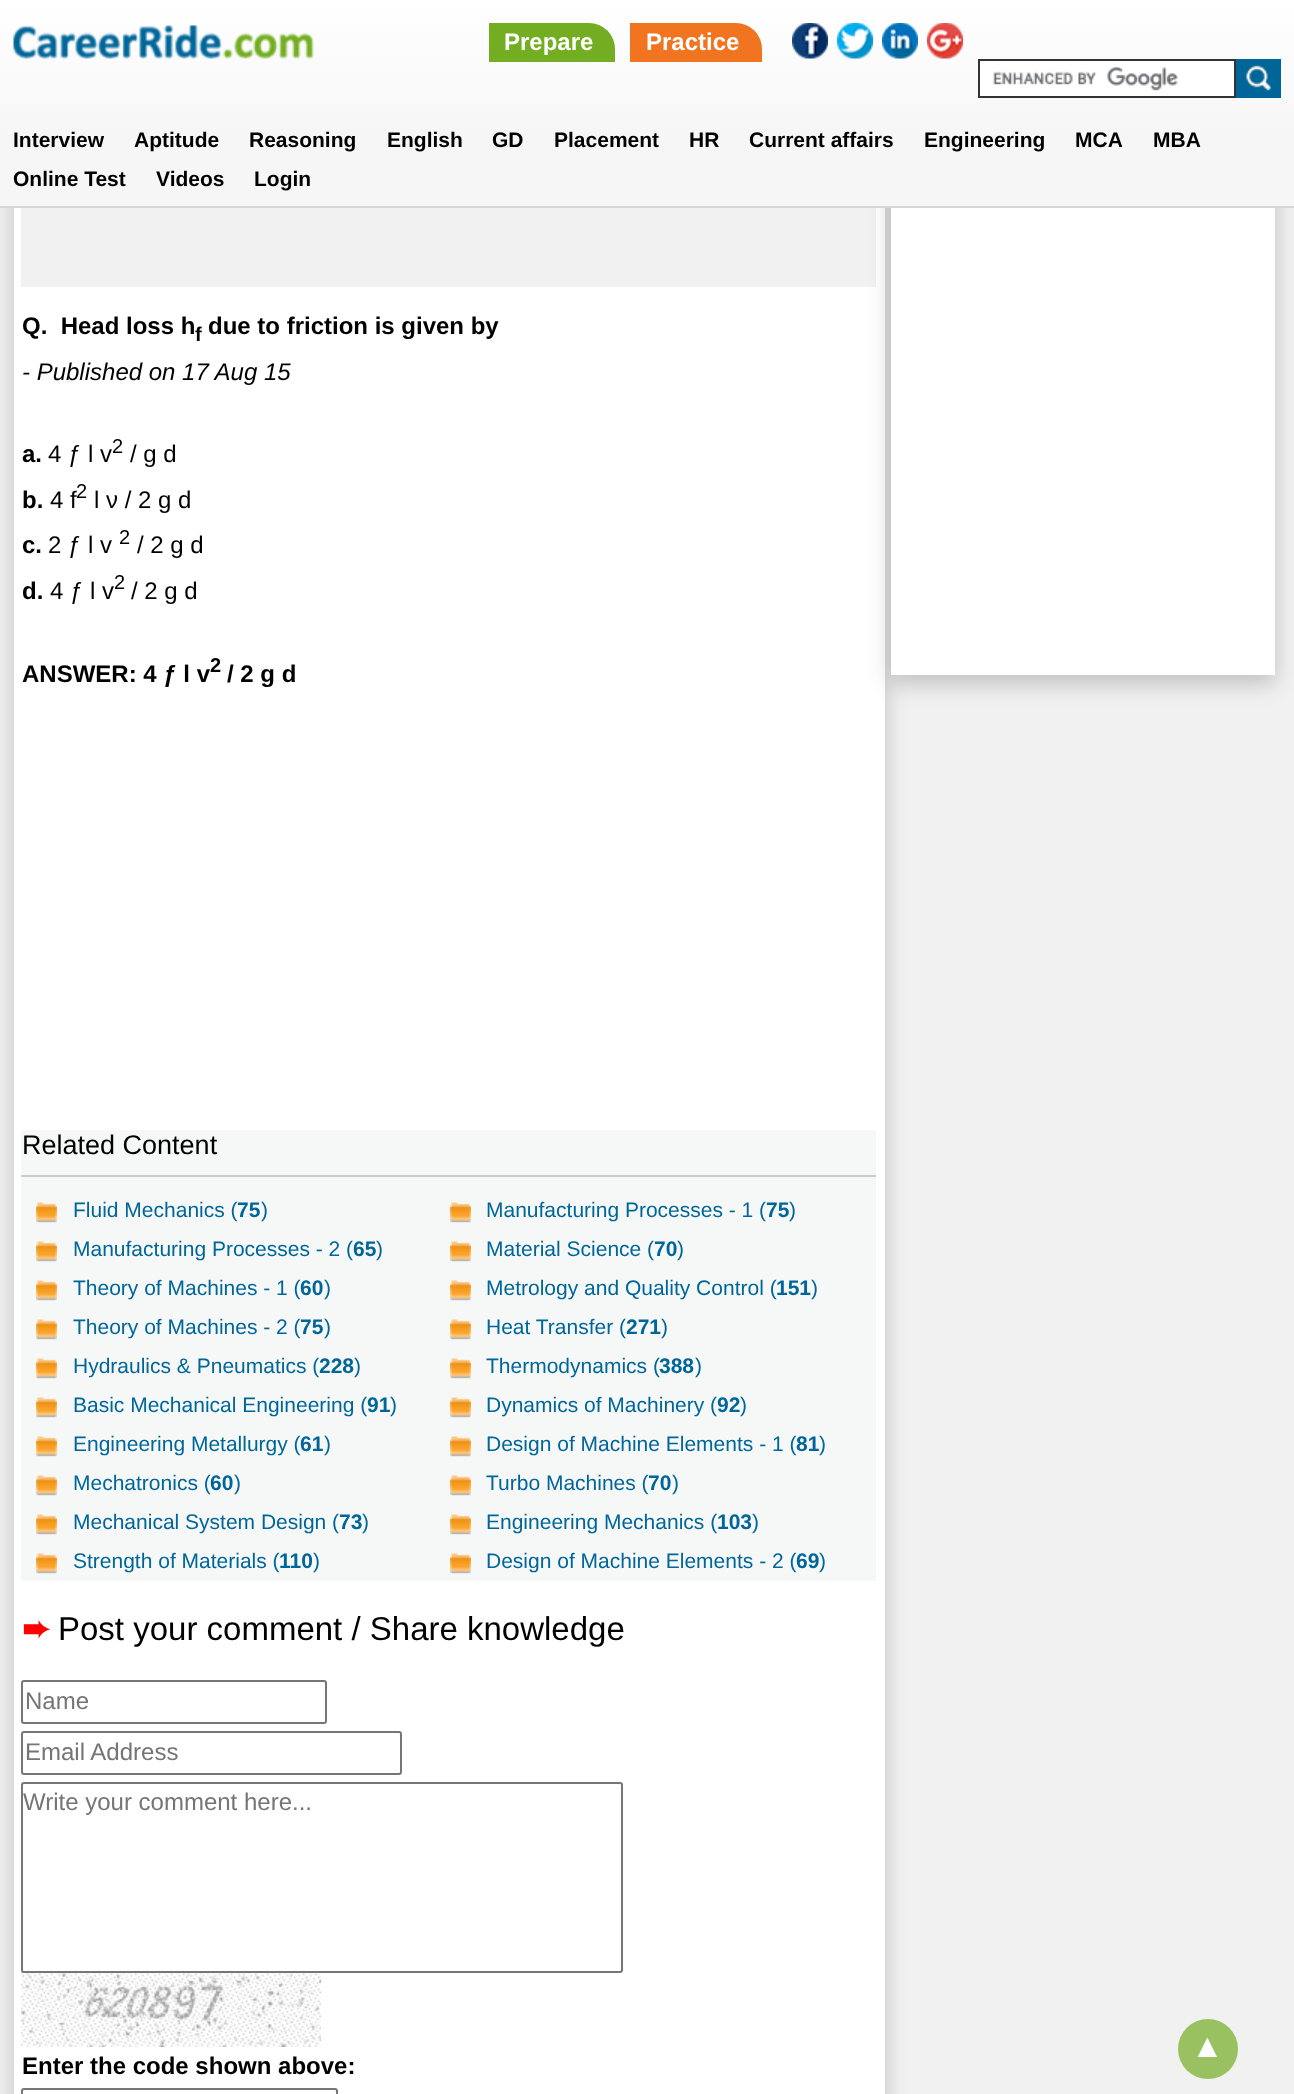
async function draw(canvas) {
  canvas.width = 1294
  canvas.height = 2094
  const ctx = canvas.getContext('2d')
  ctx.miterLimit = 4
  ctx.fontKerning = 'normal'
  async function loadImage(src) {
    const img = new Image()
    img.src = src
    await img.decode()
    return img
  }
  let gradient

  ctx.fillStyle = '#f1f1f1'
  ctx.fillRect(0, 0, 1294, 2094)
  ctx.fillStyle = '#00000033'
  ctx.filter = 'blur(11px)'
  ctx.beginPath()
  ctx.rect(14, -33, 871, 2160)
  ctx.fill()
  ctx.filter = 'none'
  ctx.fillStyle = '#fff'
  ctx.fillRect(14, 208, 871, 1886)
  ctx.fillStyle = '#f1f1f1'
  ctx.fillRect(21, 208, 855, 79)
  ctx.fillStyle = '#00000033'
  ctx.filter = 'blur(11px)'
  ctx.beginPath()
  ctx.rect(891, -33, 384, 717)
  ctx.fill()
  ctx.filter = 'none'
  gradient = ctx.createLinearGradient(647, 206, 647, 0)
  gradient.addColorStop(0.34, '#f6f6f6')
  gradient.addColorStop(1, '#fff')
  ctx.fillStyle = gradient
  ctx.fillRect(0, 0, 1294, 206)
  ctx.fillStyle = '#d6d6d6'
  ctx.fillRect(0, 206, 1294, 2)
  ctx.drawImage(await loadImage('image0.png'), 13, 25, 301, 34)
  ctx.fillStyle = '#73ad21'
  ctx.beginPath()
  ctx.roundRect(489, 23, 126, 39, [0, 26, 0, 0])
  ctx.fill()
  ctx.font = 'bold 24px Liberation Sans'
  ctx.fillStyle = '#fff'
  ctx.fillText('Prepare', 504, 50)
  ctx.fillStyle = '#f17421'
  ctx.beginPath()
  ctx.roundRect(630, 23, 132, 39, [0, 26, 0, 0])
  ctx.fill()
  ctx.fillStyle = '#fff'
  ctx.fillText('Practice', 646, 50)
  ctx.drawImage(await loadImage('image1.png'), 792, 23, 36, 36)
  ctx.drawImage(await loadImage('image2.png'), 837, 23, 36, 36)
  ctx.drawImage(await loadImage('image3.png'), 882, 23, 36, 36)
  ctx.drawImage(await loadImage('image4.png'), 927, 23, 36, 36)
  ctx.fillRect(980, 61, 254, 35)
  ctx.drawImage(await loadImage('image5.png'), 992, 67, 186, 24)
  ctx.strokeStyle = '#333'
  ctx.lineWidth = 2
  ctx.strokeRect(979, 60, 256, 37)
  ctx.fillStyle = '#069'
  ctx.fillRect(1236, 59, 45, 39)
  ctx.drawImage(await loadImage('image6.png'), 1246, 65, 25, 26)
  ctx.font = 'bold 21px Liberation Sans'
  ctx.fillStyle = '#000'
  ctx.fillText('Interview', 13, 147)
  ctx.fillText('Aptitude', 134, 147)
  ctx.fillText('Reasoning', 249, 147)
  ctx.fillText('English', 387, 147)
  ctx.fillText('GD', 492, 147)
  ctx.fillText('Placement', 554, 147)
  ctx.fillText('HR', 689, 147)
  ctx.fillText('Current affairs', 749, 147)
  ctx.fillText('Engineering', 924, 147)
  ctx.fillText('MCA', 1075, 147)
  ctx.fillText('MBA', 1153, 147)
  ctx.fillText('Online Test', 13, 186)
  ctx.fillText('Videos', 156, 186)
  ctx.fillText('Login', 254, 186)
  ctx.font = 'bold 24px Liberation Sans'
  ctx.fillText('Q.  Head loss h', 22, 334)
  ctx.font = 'bold 20px Liberation Sans'
  ctx.fillText('f', 195, 341)
  ctx.font = 'bold 24px Liberation Sans'
  ctx.fillText('due to friction is given by', 208, 334)
  ctx.font = 'italic 24px Liberation Sans'
  ctx.fillText('- Published on 17 Aug 15', 22, 380)
  ctx.font = 'bold 24px Liberation Sans'
  ctx.fillText('a.', 22, 462)
  ctx.font = '24px Liberation Sans'
  ctx.fillText('4 ƒ l v', 48, 462)
  ctx.font = '20px Liberation Sans'
  ctx.fillText('2', 112, 453)
  ctx.font = '24px Liberation Sans'
  ctx.fillText('/ g d', 130, 462)
  ctx.font = 'bold 24px Liberation Sans'
  ctx.fillText('b.', 22, 508)
  ctx.font = '24px Liberation Sans'
  ctx.fillText('4 f', 50, 508)
  ctx.font = '20px Liberation Sans'
  ctx.fillText('2', 76, 498)
  ctx.font = '24px Liberation Sans'
  ctx.fillText('l ν / 2 g d', 94, 508)
  ctx.font = 'bold 24px Liberation Sans'
  ctx.fillText('c.', 22, 553)
  ctx.font = '24px Liberation Sans'
  ctx.fillText('2 ƒ l v', 48, 553)
  ctx.font = '20px Liberation Sans'
  ctx.fillText('2', 119, 544)
  ctx.font = '24px Liberation Sans'
  ctx.fillText('/ 2 g d', 137, 553)
  ctx.font = 'bold 24px Liberation Sans'
  ctx.fillText('d.', 22, 599)
  ctx.font = '24px Liberation Sans'
  ctx.fillText('4 ƒ l v', 50, 599)
  ctx.font = '20px Liberation Sans'
  ctx.fillText('2', 114, 589)
  ctx.font = '24px Liberation Sans'
  ctx.fillText('/ 2 g d', 131, 599)
  ctx.font = 'bold 24px Liberation Sans'
  ctx.fillText('ANSWER: 4 ƒ l v', 22, 682)
  ctx.font = 'bold 20px Liberation Sans'
  ctx.fillText('2', 210, 672)
  ctx.font = 'bold 24px Liberation Sans'
  ctx.fillText('/ 2 g d', 227, 682)
  ctx.fillStyle = '#f6f8f8'
  ctx.fillRect(21, 1130, 855, 451)
  ctx.fillStyle = '#ccc'
  ctx.fillRect(21, 1175, 855, 2)
  ctx.font = '27px Liberation Sans'
  ctx.fillStyle = '#000'
  ctx.fillText('Related Content', 22, 1154)
  ctx.drawImage(await loadImage('image7.png'), 36, 1202, 21, 21)
  ctx.font = '21px Liberation Sans'
  ctx.fillStyle = '#069'
  ctx.fillText('Fluid Mechanics (', 73, 1217)
  ctx.font = 'bold 21px Liberation Sans'
  ctx.fillText('75', 237, 1217)
  ctx.font = '21px Liberation Sans'
  ctx.fillText(')', 261, 1217)
  ctx.drawImage(await loadImage('image8.png'), 450, 1202, 21, 21)
  ctx.fillText('Manufacturing Processes - 1 (', 486, 1217)
  ctx.font = 'bold 21px Liberation Sans'
  ctx.fillText('75', 766, 1217)
  ctx.font = '21px Liberation Sans'
  ctx.fillText(')', 789, 1217)
  ctx.drawImage(await loadImage('image7.png'), 36, 1241, 21, 21)
  ctx.fillText('Manufacturing Processes - 2 (', 73, 1256)
  ctx.font = 'bold 21px Liberation Sans'
  ctx.fillText('65', 353, 1256)
  ctx.font = '21px Liberation Sans'
  ctx.fillText(')', 376, 1256)
  ctx.drawImage(await loadImage('image8.png'), 450, 1241, 21, 21)
  ctx.fillText('Material Science (', 486, 1256)
  ctx.font = 'bold 21px Liberation Sans'
  ctx.fillText('70', 654, 1256)
  ctx.font = '21px Liberation Sans'
  ctx.fillText(')', 677, 1256)
  ctx.drawImage(await loadImage('image7.png'), 36, 1280, 21, 21)
  ctx.fillText('Theory of Machines - 1 (', 73, 1295)
  ctx.font = 'bold 21px Liberation Sans'
  ctx.fillText('60', 300, 1295)
  ctx.font = '21px Liberation Sans'
  ctx.fillText(')', 324, 1295)
  ctx.drawImage(await loadImage('image8.png'), 450, 1280, 21, 21)
  ctx.fillText('Metrology and Quality Control (', 486, 1295)
  ctx.font = 'bold 21px Liberation Sans'
  ctx.fillText('151', 776, 1295)
  ctx.font = '21px Liberation Sans'
  ctx.fillText(')', 811, 1295)
  ctx.drawImage(await loadImage('image7.png'), 36, 1319, 21, 21)
  ctx.fillText('Theory of Machines - 2 (', 73, 1334)
  ctx.font = 'bold 21px Liberation Sans'
  ctx.fillText('75', 300, 1334)
  ctx.font = '21px Liberation Sans'
  ctx.fillText(')', 324, 1334)
  ctx.drawImage(await loadImage('image8.png'), 450, 1319, 21, 21)
  ctx.fillText('Heat Transfer (', 486, 1334)
  ctx.font = 'bold 21px Liberation Sans'
  ctx.fillText('271', 626, 1334)
  ctx.font = '21px Liberation Sans'
  ctx.fillText(')', 661, 1334)
  ctx.drawImage(await loadImage('image7.png'), 36, 1358, 21, 21)
  ctx.fillText('Hydraulics & Pneumatics (', 73, 1373)
  ctx.font = 'bold 21px Liberation Sans'
  ctx.fillText('228', 319, 1373)
  ctx.font = '21px Liberation Sans'
  ctx.fillText(')', 354, 1373)
  ctx.drawImage(await loadImage('image8.png'), 450, 1358, 21, 21)
  ctx.fillText('Thermodynamics (', 486, 1373)
  ctx.font = 'bold 21px Liberation Sans'
  ctx.fillText('388', 659, 1373)
  ctx.font = '21px Liberation Sans'
  ctx.fillText(')', 695, 1373)
  ctx.drawImage(await loadImage('image7.png'), 36, 1397, 21, 21)
  ctx.fillText('Basic Mechanical Engineering (', 73, 1412)
  ctx.font = 'bold 21px Liberation Sans'
  ctx.fillText('91', 367, 1412)
  ctx.font = '21px Liberation Sans'
  ctx.fillText(')', 390, 1412)
  ctx.drawImage(await loadImage('image8.png'), 450, 1397, 21, 21)
  ctx.fillText('Dynamics of Machinery (', 486, 1412)
  ctx.font = 'bold 21px Liberation Sans'
  ctx.fillText('92', 717, 1412)
  ctx.font = '21px Liberation Sans'
  ctx.fillText(')', 740, 1412)
  ctx.drawImage(await loadImage('image7.png'), 36, 1436, 21, 21)
  ctx.fillText('Engineering Metallurgy (', 73, 1451)
  ctx.font = 'bold 21px Liberation Sans'
  ctx.fillText('61', 300, 1451)
  ctx.font = '21px Liberation Sans'
  ctx.fillText(')', 324, 1451)
  ctx.drawImage(await loadImage('image8.png'), 450, 1436, 21, 21)
  ctx.fillText('Design of Machine Elements - 1 (', 486, 1451)
  ctx.font = 'bold 21px Liberation Sans'
  ctx.fillText('81', 796, 1451)
  ctx.font = '21px Liberation Sans'
  ctx.fillText(')', 819, 1451)
  ctx.drawImage(await loadImage('image7.png'), 36, 1475, 21, 21)
  ctx.fillText('Mechatronics (', 73, 1490)
  ctx.font = 'bold 21px Liberation Sans'
  ctx.fillText('60', 210, 1490)
  ctx.font = '21px Liberation Sans'
  ctx.fillText(')', 234, 1490)
  ctx.drawImage(await loadImage('image8.png'), 450, 1475, 21, 21)
  ctx.fillText('Turbo Machines (', 486, 1490)
  ctx.font = 'bold 21px Liberation Sans'
  ctx.fillText('70', 648, 1490)
  ctx.font = '21px Liberation Sans'
  ctx.fillText(')', 672, 1490)
  ctx.drawImage(await loadImage('image7.png'), 36, 1514, 21, 21)
  ctx.fillText('Mechanical System Design (', 73, 1529)
  ctx.font = 'bold 21px Liberation Sans'
  ctx.fillText('73', 339, 1529)
  ctx.font = '21px Liberation Sans'
  ctx.fillText(')', 362, 1529)
  ctx.drawImage(await loadImage('image8.png'), 450, 1514, 21, 21)
  ctx.fillText('Engineering Mechanics (', 486, 1529)
  ctx.font = 'bold 21px Liberation Sans'
  ctx.fillText('103', 717, 1529)
  ctx.font = '21px Liberation Sans'
  ctx.fillText(')', 752, 1529)
  ctx.drawImage(await loadImage('image7.png'), 36, 1553, 21, 21)
  ctx.fillText('Strength of Materials (', 73, 1568)
  ctx.font = 'bold 21px Liberation Sans'
  ctx.fillText('110', 279, 1568)
  ctx.font = '21px Liberation Sans'
  ctx.fillText(')', 313, 1568)
  ctx.drawImage(await loadImage('image8.png'), 450, 1553, 21, 21)
  ctx.fillText('Design of Machine Elements - 2 (', 486, 1568)
  ctx.font = 'bold 21px Liberation Sans'
  ctx.fillText('69', 796, 1568)
  ctx.font = '21px Liberation Sans'
  ctx.fillText(')', 819, 1568)
  ctx.font = 'bold 33px DejaVu Sans'
  ctx.fillStyle = '#f00'
  ctx.fillText('➨', 22, 1640)
  ctx.font = '33px Liberation Sans'
  ctx.fillStyle = '#000'
  ctx.fillText('Post your comment / Share knowledge', 58, 1640)
  ctx.beginPath()
  ctx.roundRect(22, 1681, 304, 42, 2)
  ctx.strokeStyle = '#767676'
  ctx.stroke()
  ctx.font = '24px Liberation Sans'
  ctx.fillStyle = '#757575'
  ctx.fillText('Name', 25, 1709)
  ctx.beginPath()
  ctx.roundRect(22, 1732, 379, 42, 2)
  ctx.stroke()
  ctx.fillText('Email Address', 25, 1760)
  ctx.drawImage(await loadImage('image9.png'), 21, 1972, 300, 75)
  ctx.fillStyle = '#fff'
  ctx.beginPath()
  ctx.roundRect(22, 1783, 600, 189, 2)
  ctx.fill()
  ctx.stroke()
  ctx.fillStyle = '#757575'
  ctx.fillText('Write your comment here...', 23, 1810)
  ctx.font = 'bold 24px Liberation Sans'
  ctx.fillStyle = '#000'
  ctx.fillText('Enter the code shown above:', 22, 2074)
  ctx.beginPath()
  ctx.roundRect(22, 2089, 315, 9, 2)
  ctx.stroke()
  ctx.fillStyle = '#fff'
  ctx.fillRect(891, 208, 384, 467)
  ctx.fillStyle = '#99c15f'
  ctx.beginPath()
  ctx.arc(1208, 2049, 30, 0, 2 * Math.PI)
  ctx.fill()
  ctx.font = 'bold 33px Liberation Sans'
  ctx.fillStyle = '#fff'
  ctx.fillText('▲', 1191, 2057)
}

draw(document.querySelector('canvas'))
